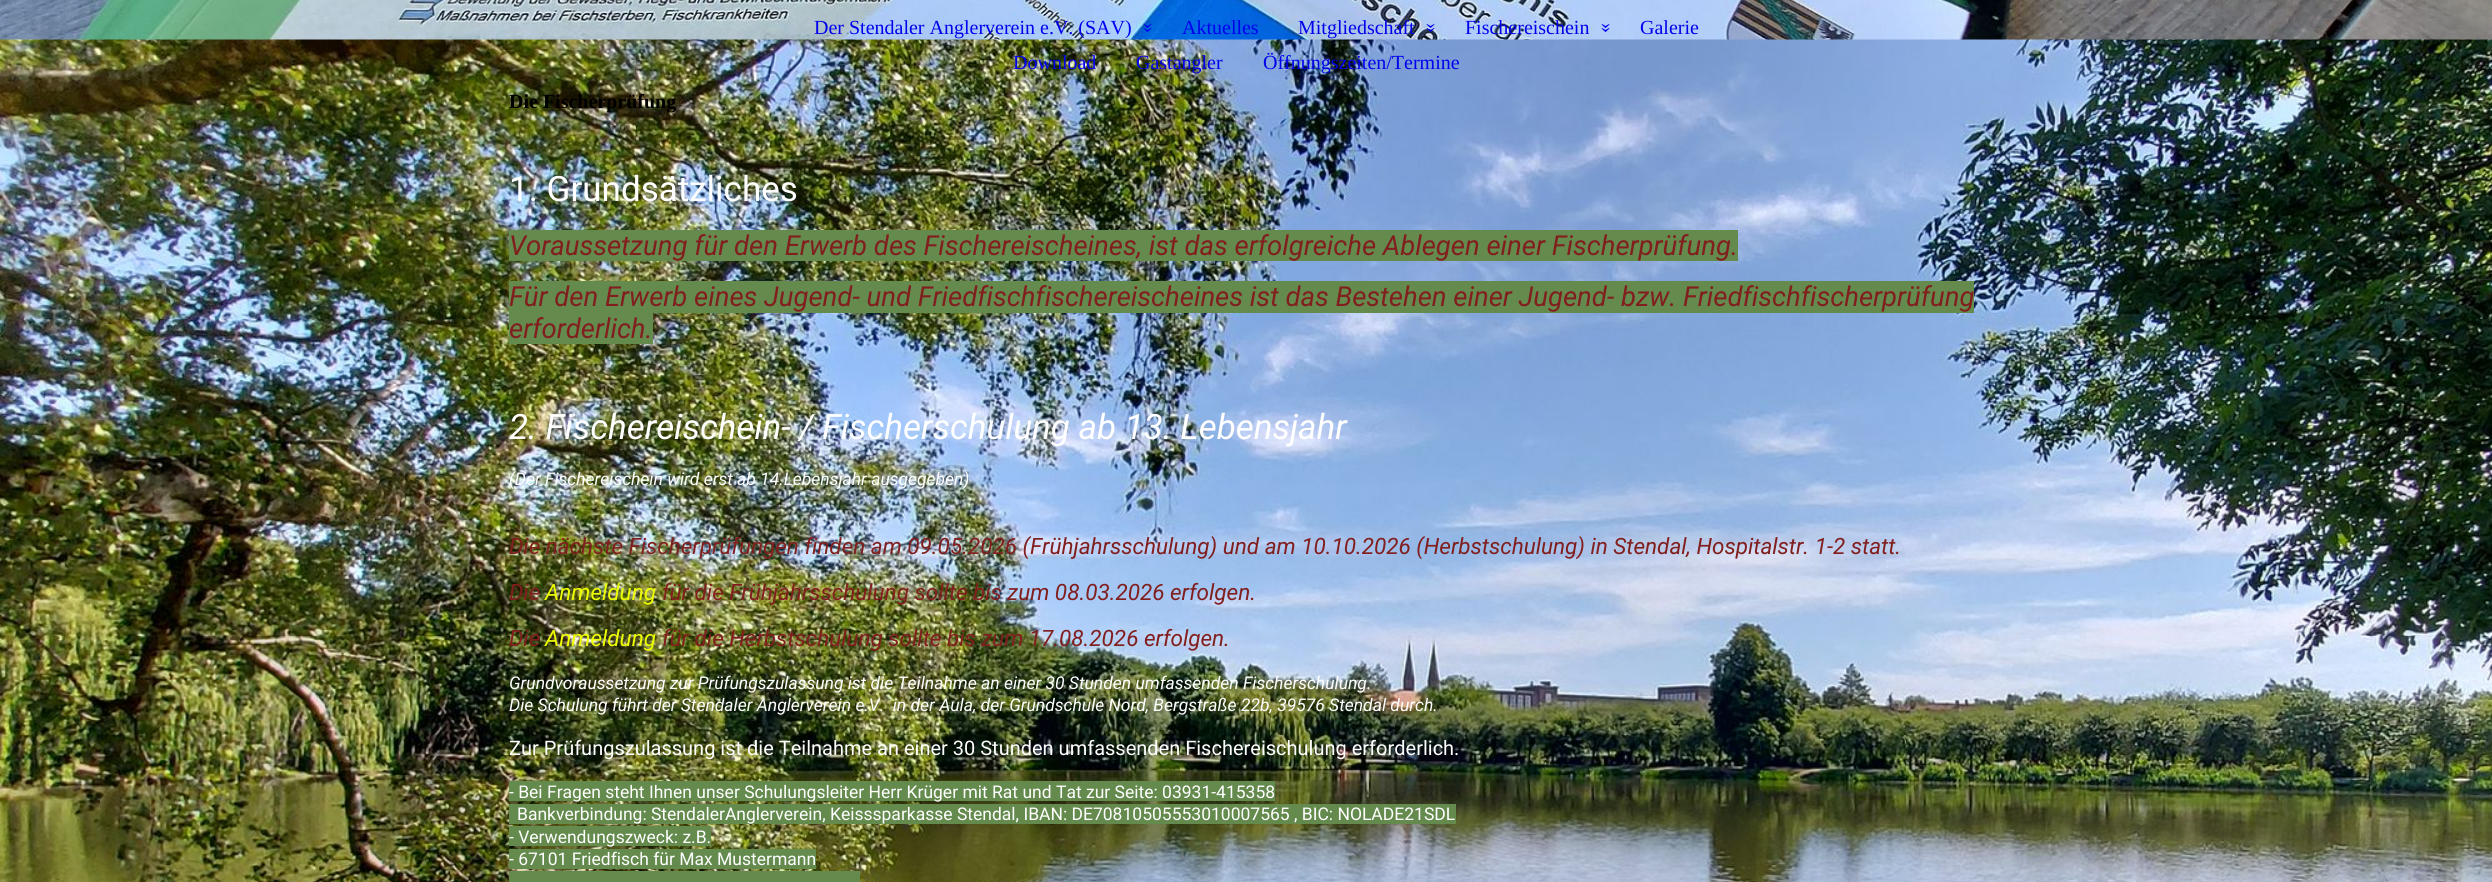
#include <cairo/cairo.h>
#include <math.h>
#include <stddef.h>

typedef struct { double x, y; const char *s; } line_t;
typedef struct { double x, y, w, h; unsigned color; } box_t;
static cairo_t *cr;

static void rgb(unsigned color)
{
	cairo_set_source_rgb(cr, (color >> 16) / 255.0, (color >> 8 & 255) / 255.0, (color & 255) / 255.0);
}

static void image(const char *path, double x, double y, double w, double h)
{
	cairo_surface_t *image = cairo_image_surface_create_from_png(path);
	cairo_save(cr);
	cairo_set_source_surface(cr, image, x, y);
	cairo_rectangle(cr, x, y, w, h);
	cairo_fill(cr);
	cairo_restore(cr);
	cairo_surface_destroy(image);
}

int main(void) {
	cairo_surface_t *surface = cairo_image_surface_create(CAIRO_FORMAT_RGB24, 2492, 882);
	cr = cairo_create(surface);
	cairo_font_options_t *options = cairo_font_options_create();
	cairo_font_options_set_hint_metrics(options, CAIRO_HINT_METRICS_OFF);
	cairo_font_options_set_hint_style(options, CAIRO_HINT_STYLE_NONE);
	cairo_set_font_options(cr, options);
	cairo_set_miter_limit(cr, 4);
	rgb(0xffffff);
	cairo_paint(cr);
	image("img/1.png", 0, 39, 2492, 843);
	image("img/2.png", 0, 0, 2492, 40);
	{
		static const box_t items[] = {
			{509, 230, 1229, 31, 0x648a4d},
			{509, 281, 1465, 32, 0x648a4d},
			{509, 313, 144, 31, 0x648a4d},
			{509, 781, 766, 20, 0x648a4d},
			{509, 804, 947, 20, 0x648a4d},
			{509, 826, 202, 20, 0x648a4d},
			{509, 849, 307, 20, 0x648a4d},
			{509, 871, 351, 11, 0x648a4d},
		};
		for (size_t i = 0; i < sizeof items / sizeof *items; i++) {
			rgb(items[i].color);
			cairo_rectangle(cr, items[i].x, items[i].y, items[i].w, items[i].h);
			cairo_fill(cr);
		}
	}
	cairo_select_font_face(cr, "Liberation Serif", CAIRO_FONT_SLANT_NORMAL, CAIRO_FONT_WEIGHT_NORMAL);
	cairo_set_font_size(cr, 20);
	rgb(0x0000ee);
	cairo_move_to(cr, 814, 34);
	cairo_show_text(cr, "Der Stendaler Anglerverein e.V. (SAV)");
	cairo_save(cr);
	cairo_translate(cr, 1143, 23);
	cairo_rotate(cr, 90 * M_PI / 180);
	cairo_move_to(cr, 0, 0);
	cairo_show_text(cr, "»");
	cairo_restore(cr);
	cairo_move_to(cr, 1182, 34);
	cairo_show_text(cr, "Aktuelles");
	cairo_move_to(cr, 1298, 34);
	cairo_show_text(cr, "Mitgliedschaft");
	cairo_save(cr);
	cairo_translate(cr, 1426, 23);
	cairo_rotate(cr, 90 * M_PI / 180);
	cairo_move_to(cr, 0, 0);
	cairo_show_text(cr, "»");
	cairo_restore(cr);
	cairo_move_to(cr, 1465, 34);
	cairo_show_text(cr, "Fischereischein");
	cairo_save(cr);
	cairo_translate(cr, 1601, 23);
	cairo_rotate(cr, 90 * M_PI / 180);
	cairo_move_to(cr, 0, 0);
	cairo_show_text(cr, "»");
	cairo_restore(cr);
	{
		static const line_t items[] = {
			{1640, 34, "Galerie"},
			{1013, 69, "Download"},
			{1136, 69, "Gastangler"},
			{1263, 69, "Öffnungszeiten/Termine"},
		};
		for (size_t i = 0; i < sizeof items / sizeof *items; i++) {
			cairo_move_to(cr, items[i].x, items[i].y);
			cairo_show_text(cr, items[i].s);
		}
	}
	cairo_select_font_face(cr, "Liberation Serif", CAIRO_FONT_SLANT_NORMAL, CAIRO_FONT_WEIGHT_BOLD);
	rgb(0x000000);
	cairo_move_to(cr, 509, 108);
	cairo_show_text(cr, "Die Fischerprüfung");
	cairo_select_font_face(cr, "Roboto", CAIRO_FONT_SLANT_NORMAL, CAIRO_FONT_WEIGHT_NORMAL);
	cairo_set_font_size(cr, 35);
	rgb(0xffffff);
	cairo_move_to(cr, 509, 201);
	cairo_show_text(cr, "1. Grundsätzliches");
	cairo_select_font_face(cr, "Roboto", CAIRO_FONT_SLANT_ITALIC, CAIRO_FONT_WEIGHT_NORMAL);
	cairo_set_font_size(cr, 27.5);
	rgb(0x811e1e);
	{
		static const line_t items[] = {
			{509, 255, "Voraussetzung für den Erwerb des Fischereischeines, ist das erfolgreiche Ablegen einer Fischerprüfung."},
			{509, 306, "Für den Erwerb eines Jugend- und Friedfischfischereischeines ist das Bestehen einer Jugend- bzw. Friedfischfischerprüfung"},
			{509, 338, "erforderlich."},
		};
		for (size_t i = 0; i < sizeof items / sizeof *items; i++) {
			cairo_move_to(cr, items[i].x, items[i].y);
			cairo_show_text(cr, items[i].s);
		}
	}
	cairo_set_font_size(cr, 35);
	rgb(0xffffff);
	cairo_move_to(cr, 509, 439);
	cairo_show_text(cr, "2. Fischereischein- / Fischerschulung ab 13. Lebensjahr");
	cairo_set_font_size(cr, 17.5);
	cairo_move_to(cr, 509, 485);
	cairo_show_text(cr, "(Der Fischereischein wird erst ab 14.Lebensjahr ausgegeben)");
	cairo_set_font_size(cr, 22.5);
	rgb(0x811e1e);
	cairo_move_to(cr, 509, 554);
	cairo_show_text(cr, "Die nächste Fischerprüfungen finden am 09.05.2026 (Frühjahrsschulung) und am 10.10.2026 (Herbstschulung) in Stendal, Hospitalstr. 1-2 statt.");
	cairo_move_to(cr, 509, 600);
	cairo_show_text(cr, "Die");
	rgb(0xeeff00);
	cairo_move_to(cr, 545, 600);
	cairo_show_text(cr, "Anmeldung");
	rgb(0x811e1e);
	cairo_move_to(cr, 662, 600);
	cairo_show_text(cr, "für die Frühjahrsschulung sollte bis zum 08.03.2026 erfolgen.");
	cairo_move_to(cr, 509, 646);
	cairo_show_text(cr, "Die");
	rgb(0xeeff00);
	cairo_move_to(cr, 545, 646);
	cairo_show_text(cr, "Anmeldung");
	rgb(0x811e1e);
	cairo_move_to(cr, 662, 646);
	cairo_show_text(cr, "für die Herbstschulung sollte bis zum 17.08.2026 erfolgen.");
	cairo_set_font_size(cr, 17.5);
	rgb(0xffffff);
	cairo_move_to(cr, 509, 689);
	cairo_show_text(cr, "Grundvoraussetzung zur Prüfungszulassung ist die Teilnahme an einer 30 Stunden umfassenden Fischerschulung.");
	cairo_move_to(cr, 509, 711);
	cairo_show_text(cr, "Die Schulung führt der Stendaler Anglerverein e.V.  in der Aula, der Grundschule Nord, Bergstraße 22b, 39576 Stendal durch.");
	cairo_select_font_face(cr, "Roboto", CAIRO_FONT_SLANT_NORMAL, CAIRO_FONT_WEIGHT_NORMAL);
	cairo_set_font_size(cr, 20);
	cairo_move_to(cr, 509, 755);
	cairo_show_text(cr, "Zur Prüfungszulassung ist die Teilnahme an einer 30 Stunden umfassenden Fischereischulung erforderlich.");
	cairo_set_font_size(cr, 17.5);
	{
		static const line_t items[] = {
			{509, 798, "- Bei Fragen steht Ihnen unser Schulungsleiter Herr Krüger mit Rat und Tat zur Seite: 03931-415358"},
			{517, 820, "Bankverbindung: StendalerAnglerverein, Keisssparkasse Stendal, IBAN: DE70810505553010007565 , BIC: NOLADE21SDL"},
			{509, 843, "- Verwendungszweck: z.B."},
			{509, 865, "- 67101 Friedfisch für Max Mustermann"},
		};
		for (size_t i = 0; i < sizeof items / sizeof *items; i++) {
			cairo_move_to(cr, items[i].x, items[i].y);
			cairo_show_text(cr, items[i].s);
		}
	}
	cairo_surface_write_to_png(surface, "page.png");
	cairo_font_options_destroy(options);
	cairo_destroy(cr);
	cairo_surface_destroy(surface);
	return 0;
}
